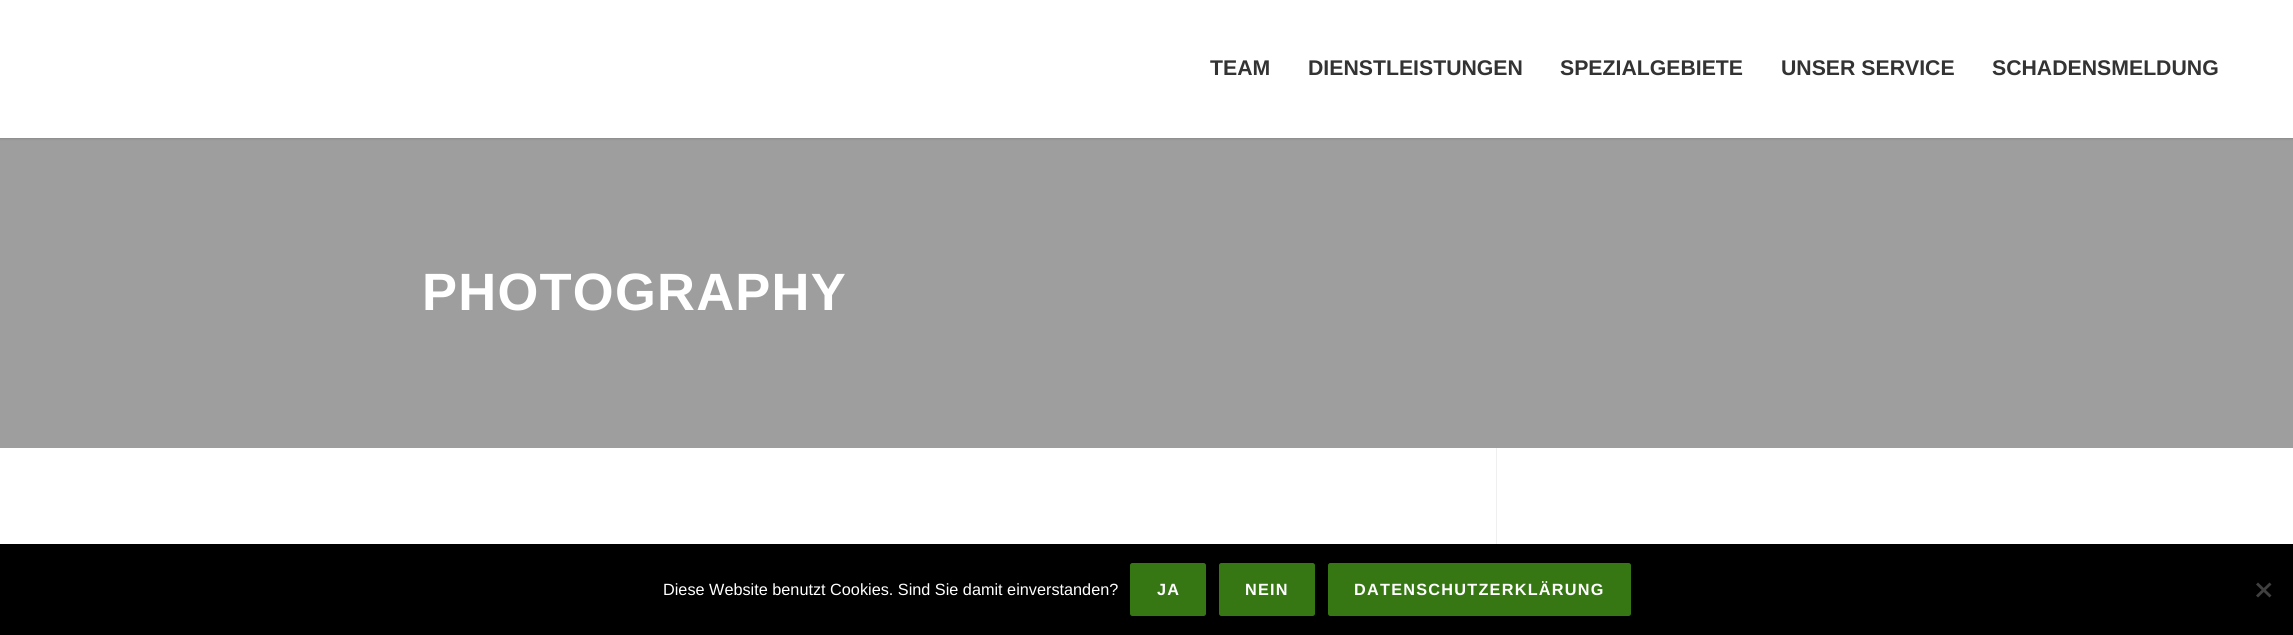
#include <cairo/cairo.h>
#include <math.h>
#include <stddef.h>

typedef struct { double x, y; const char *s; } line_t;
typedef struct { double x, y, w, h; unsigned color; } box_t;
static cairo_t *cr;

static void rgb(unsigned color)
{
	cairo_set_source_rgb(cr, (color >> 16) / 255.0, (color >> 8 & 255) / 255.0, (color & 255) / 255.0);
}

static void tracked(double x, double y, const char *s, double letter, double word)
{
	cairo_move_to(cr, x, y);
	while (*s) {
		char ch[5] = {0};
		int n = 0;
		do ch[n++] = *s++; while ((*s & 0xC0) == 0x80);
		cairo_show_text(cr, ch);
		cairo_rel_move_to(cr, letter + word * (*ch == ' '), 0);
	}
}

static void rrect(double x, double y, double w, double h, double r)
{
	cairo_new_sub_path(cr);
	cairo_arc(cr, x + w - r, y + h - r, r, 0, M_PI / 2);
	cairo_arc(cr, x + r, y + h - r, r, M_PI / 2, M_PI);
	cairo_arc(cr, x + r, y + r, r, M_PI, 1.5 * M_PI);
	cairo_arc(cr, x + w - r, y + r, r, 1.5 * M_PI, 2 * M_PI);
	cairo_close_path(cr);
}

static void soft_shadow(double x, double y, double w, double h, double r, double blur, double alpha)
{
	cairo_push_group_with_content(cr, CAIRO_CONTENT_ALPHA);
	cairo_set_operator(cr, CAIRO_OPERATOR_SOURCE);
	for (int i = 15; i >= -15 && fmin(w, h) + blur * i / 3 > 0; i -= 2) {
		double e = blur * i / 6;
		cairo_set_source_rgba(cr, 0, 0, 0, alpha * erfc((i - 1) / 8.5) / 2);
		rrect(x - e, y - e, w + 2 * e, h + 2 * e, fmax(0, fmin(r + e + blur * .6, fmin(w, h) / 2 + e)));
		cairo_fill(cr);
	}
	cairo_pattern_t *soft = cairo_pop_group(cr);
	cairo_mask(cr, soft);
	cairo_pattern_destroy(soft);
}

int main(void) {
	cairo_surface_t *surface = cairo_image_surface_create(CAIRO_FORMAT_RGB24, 2293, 635);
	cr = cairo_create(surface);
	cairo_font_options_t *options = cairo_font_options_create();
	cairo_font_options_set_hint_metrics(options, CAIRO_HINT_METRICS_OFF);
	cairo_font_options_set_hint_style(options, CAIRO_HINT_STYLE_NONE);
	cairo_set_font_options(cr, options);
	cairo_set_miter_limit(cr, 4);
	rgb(0xffffff);
	cairo_paint(cr);
	rgb(0x9e9e9e);
	cairo_rectangle(cr, 0, 138, 2293, 310);
	cairo_fill(cr);
	rgb(0x000000);
	soft_shadow(-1, -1, 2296, 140, 0, 1, 0.13);
	{
		static const box_t items[] = {
			{0, 0, 2293, 138, 0xffffff},
			{1496, 448, 1, 96, 0xefefef},
			{0, 544, 2293, 91, 0x000000},
		};
		for (size_t i = 0; i < sizeof items / sizeof *items; i++) {
			rgb(items[i].color);
			cairo_rectangle(cr, items[i].x, items[i].y, items[i].w, items[i].h);
			cairo_fill(cr);
		}
	}
	rgb(0x367714);
	rrect(1130.5, 563.5, 75, 52, 2);
	cairo_fill_preserve(cr);
	cairo_set_line_width(cr, 1);
	cairo_stroke(cr);
	rrect(1219.5, 563.5, 95, 52, 2);
	cairo_fill_preserve(cr);
	cairo_stroke(cr);
	rrect(1328.5, 563.5, 302, 52, 2);
	cairo_fill_preserve(cr);
	cairo_stroke(cr);
	rgb(0x404040);
	cairo_new_path(cr);
	cairo_move_to(cr, 2269.5, 582.5);
	cairo_line_to(cr, 2271.5, 584.5);
	cairo_line_to(cr, 2258, 597.5);
	cairo_line_to(cr, 2256, 595.5);
	cairo_close_path(cr);
	cairo_fill(cr);
	cairo_new_path(cr);
	cairo_move_to(cr, 2256, 584.5);
	cairo_line_to(cr, 2258, 582.5);
	cairo_line_to(cr, 2271.5, 595.5);
	cairo_line_to(cr, 2269.5, 597.5);
	cairo_close_path(cr);
	cairo_fill(cr);
	cairo_select_font_face(cr, "Liberation Sans", CAIRO_FONT_SLANT_NORMAL, CAIRO_FONT_WEIGHT_BOLD);
	cairo_set_font_size(cr, 21.25);
	rgb(0x333333);
	{
		static const line_t items[] = {
			{1210, 75, "TEAM"},
			{1308, 75, "DIENSTLEISTUNGEN"},
			{1560, 75, "SPEZIALGEBIETE"},
			{1781, 75, "UNSER SERVICE"},
			{1992, 75, "SCHADENSMELDUNG"},
		};
		for (size_t i = 0; i < sizeof items / sizeof *items; i++) {
			cairo_move_to(cr, items[i].x, items[i].y);
			cairo_show_text(cr, items[i].s);
		}
	}
	cairo_set_font_size(cr, 52.5);
	rgb(0xffffff);
	tracked(422, 310, "PHOTOGRAPHY", 1.25, 0);
	cairo_select_font_face(cr, "Liberation Sans", CAIRO_FONT_SLANT_NORMAL, CAIRO_FONT_WEIGHT_NORMAL);
	cairo_set_font_size(cr, 16.25);
	cairo_move_to(cr, 663, 595);
	cairo_show_text(cr, "Diese Website benutzt Cookies. Sind Sie damit einverstanden?");
	cairo_select_font_face(cr, "Liberation Sans", CAIRO_FONT_SLANT_NORMAL, CAIRO_FONT_WEIGHT_BOLD);
	{
		static const line_t items[] = {
			{1157, 595, "JA"},
			{1245, 595, "NEIN"},
			{1354, 595, "DATENSCHUTZERKLÄRUNG"},
		};
		for (size_t i = 0; i < sizeof items / sizeof *items; i++) {
			tracked(items[i].x, items[i].y, items[i].s, 1.25, 0);
		}
	}
	cairo_surface_write_to_png(surface, "page.png");
	cairo_font_options_destroy(options);
	cairo_destroy(cr);
	cairo_surface_destroy(surface);
	return 0;
}
